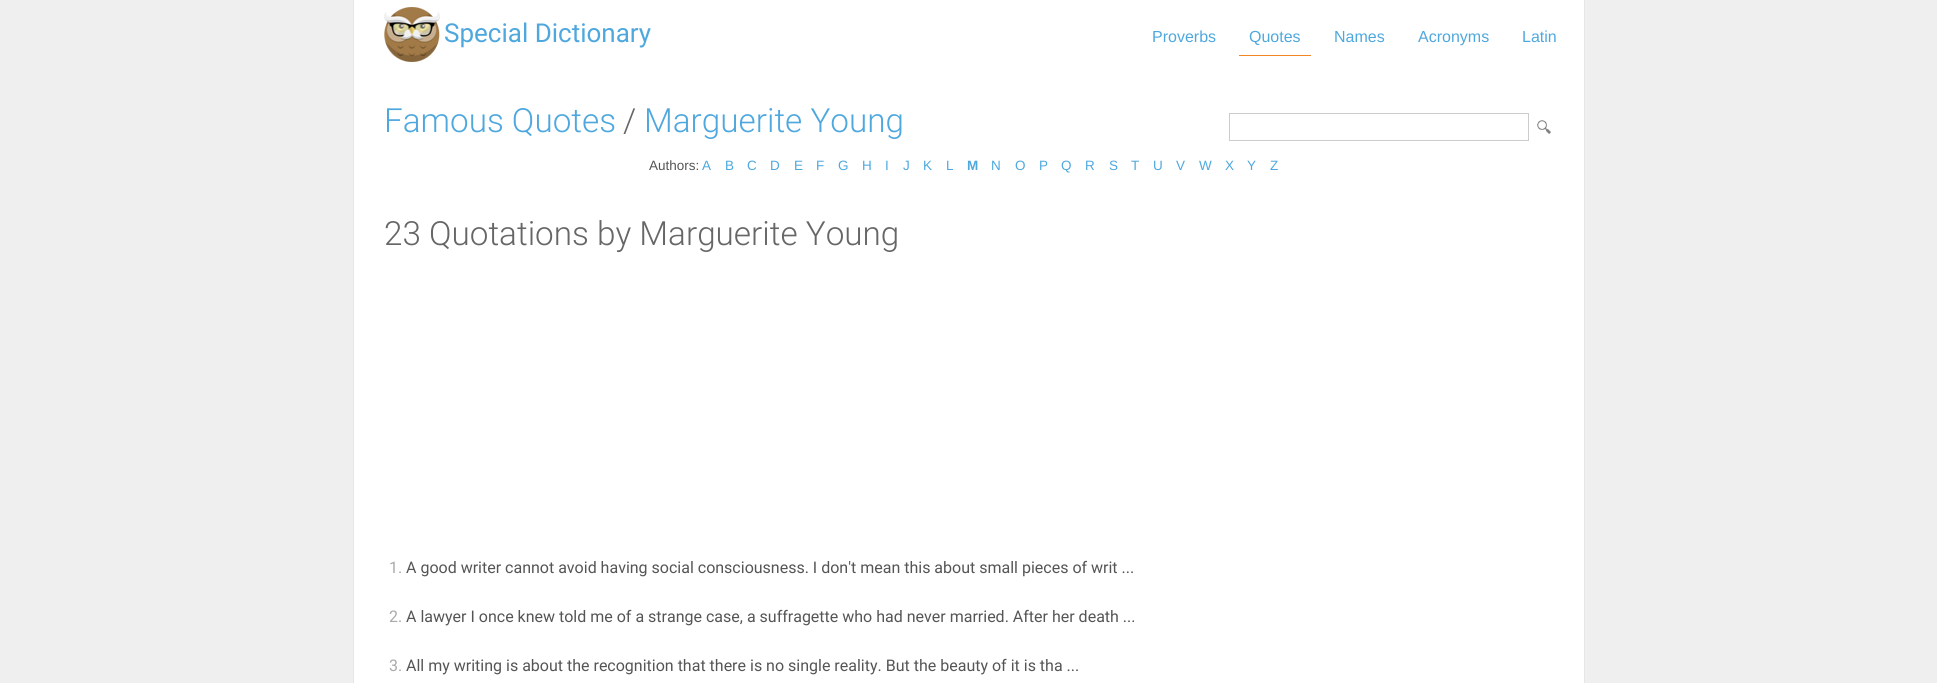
#include <cairo/cairo.h>
#include <math.h>
#include <stddef.h>

typedef struct { double x, y; const char *s; } line_t;
static cairo_t *cr;

static void rgb(unsigned color)
{
	cairo_set_source_rgb(cr, (color >> 16) / 255.0, (color >> 8 & 255) / 255.0, (color & 255) / 255.0);
}

static void rrect(double x, double y, double w, double h, double r)
{
	cairo_new_sub_path(cr);
	cairo_arc(cr, x + w - r, y + h - r, r, 0, M_PI / 2);
	cairo_arc(cr, x + r, y + h - r, r, M_PI / 2, M_PI);
	cairo_arc(cr, x + r, y + r, r, M_PI, 1.5 * M_PI);
	cairo_arc(cr, x + w - r, y + r, r, 1.5 * M_PI, 2 * M_PI);
	cairo_close_path(cr);
}

static void soft_shadow(double x, double y, double w, double h, double r, double blur, double alpha)
{
	cairo_push_group_with_content(cr, CAIRO_CONTENT_ALPHA);
	cairo_set_operator(cr, CAIRO_OPERATOR_SOURCE);
	for (int i = 15; i >= -15 && fmin(w, h) + blur * i / 3 > 0; i -= 2) {
		double e = blur * i / 6;
		cairo_set_source_rgba(cr, 0, 0, 0, alpha * erfc((i - 1) / 8.5) / 2);
		rrect(x - e, y - e, w + 2 * e, h + 2 * e, fmax(0, fmin(r + e + blur * .6, fmin(w, h) / 2 + e)));
		cairo_fill(cr);
	}
	cairo_pattern_t *soft = cairo_pop_group(cr);
	cairo_mask(cr, soft);
	cairo_pattern_destroy(soft);
}

static void image(const char *path, double x, double y, double w, double h)
{
	cairo_surface_t *image = cairo_image_surface_create_from_png(path);
	cairo_save(cr);
	cairo_set_source_surface(cr, image, x, y);
	cairo_rectangle(cr, x, y, w, h);
	cairo_fill(cr);
	cairo_restore(cr);
	cairo_surface_destroy(image);
}

int main(void) {
	cairo_surface_t *surface = cairo_image_surface_create(CAIRO_FORMAT_RGB24, 1937, 683);
	cr = cairo_create(surface);
	cairo_font_options_t *options = cairo_font_options_create();
	cairo_font_options_set_hint_metrics(options, CAIRO_HINT_METRICS_OFF);
	cairo_font_options_set_hint_style(options, CAIRO_HINT_STYLE_NONE);
	cairo_set_font_options(cr, options);
	cairo_set_miter_limit(cr, 4);
	rgb(0xefefef);
	cairo_paint(cr);
	rgb(0xcccccc);
	soft_shadow(354, 0, 1230, 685, 0, 0.5, 1);
	rgb(0xffffff);
	cairo_rectangle(cr, 354, 0, 1230, 683);
	cairo_fill(cr);
	image("img/1.png", 384, 7, 56, 55);
	rgb(0xf58723);
	cairo_rectangle(cr, 1239, 55, 72, 1);
	cairo_fill(cr);
	cairo_rectangle(cr, 1229.5, 113.5, 299, 27);
	rgb(0xcccccc);
	cairo_set_line_width(cr, 1);
	cairo_stroke(cr);
	image("img/2.png", 1537, 120, 14, 14);
	cairo_select_font_face(cr, "Roboto", CAIRO_FONT_SLANT_NORMAL, CAIRO_FONT_WEIGHT_NORMAL);
	cairo_set_font_size(cr, 26);
	rgb(0x4ea8de);
	cairo_move_to(cr, 444, 42);
	cairo_show_text(cr, "Special Dictionary");
	cairo_select_font_face(cr, "Liberation Sans", CAIRO_FONT_SLANT_NORMAL, CAIRO_FONT_WEIGHT_NORMAL);
	cairo_set_font_size(cr, 16);
	{
		static const line_t items[] = {
			{1152, 42, "Proverbs"},
			{1249, 42, "Quotes"},
			{1334, 42, "Names"},
			{1418, 42, "Acronyms"},
			{1522, 42, "Latin"},
		};
		for (size_t i = 0; i < sizeof items / sizeof *items; i++) {
			cairo_move_to(cr, items[i].x, items[i].y);
			cairo_show_text(cr, items[i].s);
		}
	}
	cairo_select_font_face(cr, "Roboto Light", CAIRO_FONT_SLANT_NORMAL, CAIRO_FONT_WEIGHT_NORMAL);
	cairo_set_font_size(cr, 33.25);
	cairo_move_to(cr, 384, 132);
	cairo_show_text(cr, "Famous Quotes");
	rgb(0x666666);
	cairo_move_to(cr, 623, 132);
	cairo_show_text(cr, "/");
	rgb(0x4ea8de);
	cairo_move_to(cr, 644, 132);
	cairo_show_text(cr, "Marguerite Young");
	cairo_select_font_face(cr, "Liberation Sans", CAIRO_FONT_SLANT_NORMAL, CAIRO_FONT_WEIGHT_NORMAL);
	cairo_set_font_size(cr, 13.5);
	rgb(0x555555);
	cairo_move_to(cr, 649, 170);
	cairo_show_text(cr, "Authors:");
	rgb(0x4ea8de);
	{
		static const line_t items[] = {
			{702, 170, "A"},
			{725, 170, "B"},
			{747, 170, "C"},
			{770, 170, "D"},
			{794, 170, "E"},
			{816, 170, "F"},
			{838, 170, "G"},
			{862, 170, "H"},
			{885, 170, "I"},
			{903, 170, "J"},
			{923, 170, "K"},
			{946, 170, "L"},
		};
		for (size_t i = 0; i < sizeof items / sizeof *items; i++) {
			cairo_move_to(cr, items[i].x, items[i].y);
			cairo_show_text(cr, items[i].s);
		}
	}
	cairo_select_font_face(cr, "Liberation Sans", CAIRO_FONT_SLANT_NORMAL, CAIRO_FONT_WEIGHT_BOLD);
	cairo_move_to(cr, 967, 170);
	cairo_show_text(cr, "M");
	cairo_select_font_face(cr, "Liberation Sans", CAIRO_FONT_SLANT_NORMAL, CAIRO_FONT_WEIGHT_NORMAL);
	{
		static const line_t items[] = {
			{991, 170, "N"},
			{1015, 170, "O"},
			{1039, 170, "P"},
			{1061, 170, "Q"},
			{1085, 170, "R"},
			{1109, 170, "S"},
			{1131, 170, "T"},
			{1153, 170, "U"},
			{1176, 170, "V"},
			{1199, 170, "W"},
			{1225, 170, "X"},
			{1247, 170, "Y"},
			{1270, 170, "Z"},
		};
		for (size_t i = 0; i < sizeof items / sizeof *items; i++) {
			cairo_move_to(cr, items[i].x, items[i].y);
			cairo_show_text(cr, items[i].s);
		}
	}
	cairo_select_font_face(cr, "Roboto Light", CAIRO_FONT_SLANT_NORMAL, CAIRO_FONT_WEIGHT_NORMAL);
	cairo_set_font_size(cr, 33.25);
	rgb(0x666666);
	cairo_move_to(cr, 384, 245);
	cairo_show_text(cr, "23 Quotations by Marguerite Young");
	cairo_select_font_face(cr, "Roboto", CAIRO_FONT_SLANT_NORMAL, CAIRO_FONT_WEIGHT_NORMAL);
	cairo_set_font_size(cr, 16);
	rgb(0xaaaaaa);
	cairo_move_to(cr, 389, 573);
	cairo_show_text(cr, "1.");
	rgb(0x555555);
	cairo_move_to(cr, 406, 573);
	cairo_show_text(cr, "A good writer cannot avoid having social consciousness. I don't mean this about small pieces of writ ...");
	rgb(0xaaaaaa);
	cairo_move_to(cr, 389, 622);
	cairo_show_text(cr, "2.");
	rgb(0x555555);
	cairo_move_to(cr, 406, 622);
	cairo_show_text(cr, "A lawyer I once knew told me of a strange case, a suffragette who had never married. After her death ...");
	rgb(0xaaaaaa);
	cairo_move_to(cr, 389, 671);
	cairo_show_text(cr, "3.");
	rgb(0x555555);
	cairo_move_to(cr, 406, 671);
	cairo_show_text(cr, "All my writing is about the recognition that there is no single reality. But the beauty of it is tha ...");
	cairo_surface_write_to_png(surface, "page.png");
	cairo_font_options_destroy(options);
	cairo_destroy(cr);
	cairo_surface_destroy(surface);
	return 0;
}
